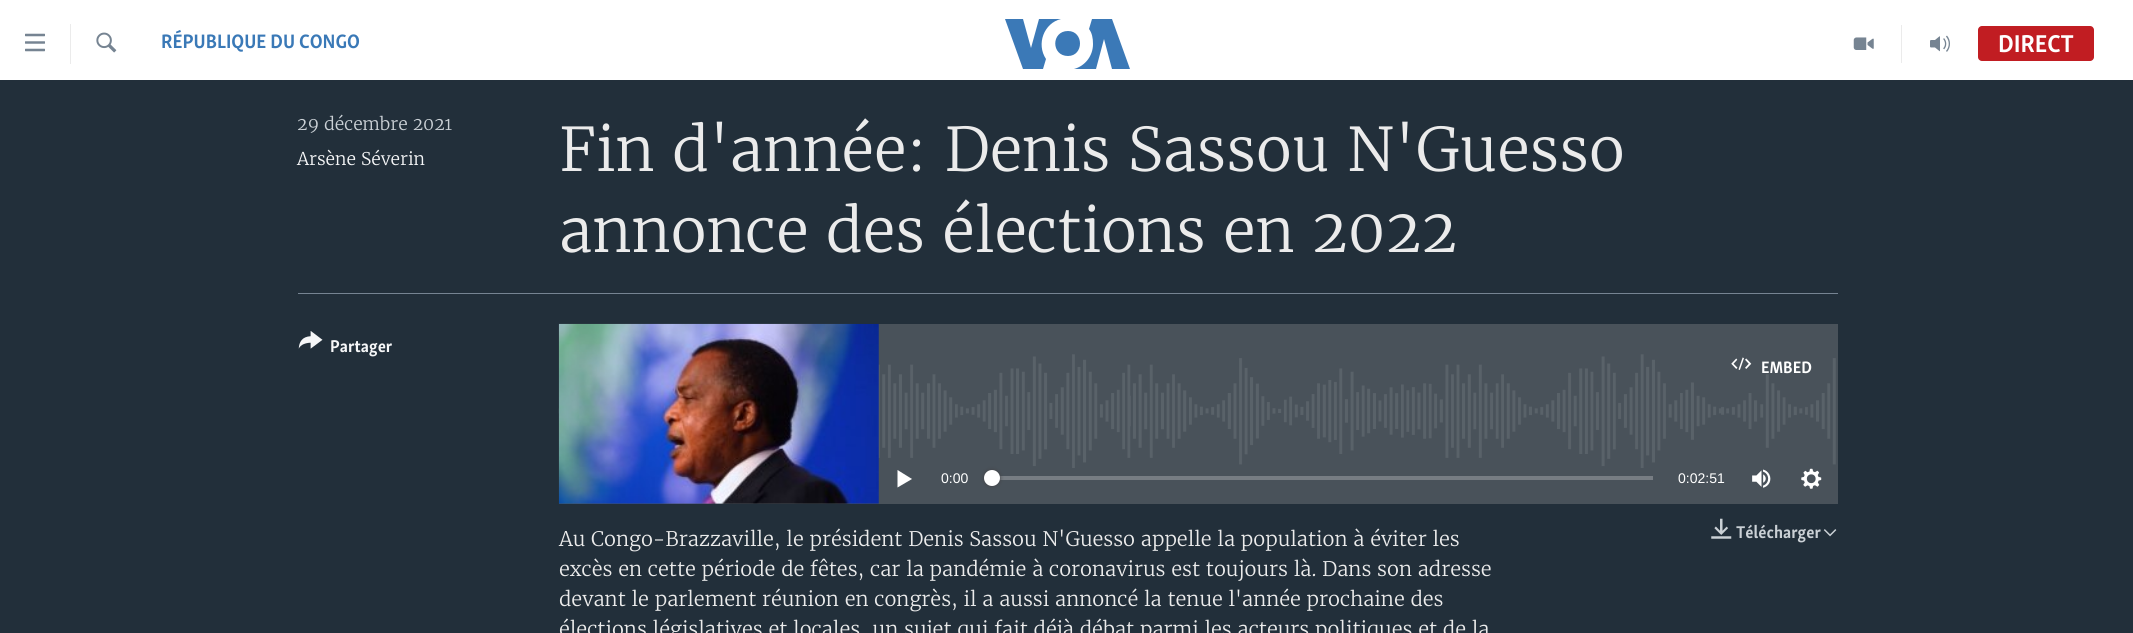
#include <cairo/cairo.h>
#include <math.h>
#include <stddef.h>

typedef struct { double x, y; const char *s; } line_t;
static cairo_t *cr;

static void rgb(unsigned color)
{
	cairo_set_source_rgb(cr, (color >> 16) / 255.0, (color >> 8 & 255) / 255.0, (color & 255) / 255.0);
}

static void rrect(double x, double y, double w, double h, double r)
{
	cairo_new_sub_path(cr);
	cairo_arc(cr, x + w - r, y + h - r, r, 0, M_PI / 2);
	cairo_arc(cr, x + r, y + h - r, r, M_PI / 2, M_PI);
	cairo_arc(cr, x + r, y + r, r, M_PI, 1.5 * M_PI);
	cairo_arc(cr, x + w - r, y + r, r, 1.5 * M_PI, 2 * M_PI);
	cairo_close_path(cr);
}

static void soft_shadow(double x, double y, double w, double h, double r, double blur, double alpha)
{
	cairo_push_group_with_content(cr, CAIRO_CONTENT_ALPHA);
	cairo_set_operator(cr, CAIRO_OPERATOR_SOURCE);
	for (int i = 15; i >= -15 && fmin(w, h) + blur * i / 3 > 0; i -= 2) {
		double e = blur * i / 6;
		cairo_set_source_rgba(cr, 0, 0, 0, alpha * erfc((i - 1) / 8.5) / 2);
		rrect(x - e, y - e, w + 2 * e, h + 2 * e, fmax(0, fmin(r + e + blur * .6, fmin(w, h) / 2 + e)));
		cairo_fill(cr);
	}
	cairo_pattern_t *soft = cairo_pop_group(cr);
	cairo_mask(cr, soft);
	cairo_pattern_destroy(soft);
}

static void image(const char *path, double x, double y, double w, double h)
{
	cairo_surface_t *image = cairo_image_surface_create_from_png(path);
	cairo_save(cr);
	cairo_set_source_surface(cr, image, x, y);
	cairo_rectangle(cr, x, y, w, h);
	cairo_fill(cr);
	cairo_restore(cr);
	cairo_surface_destroy(image);
}

int main(void) {
	cairo_surface_t *surface = cairo_image_surface_create(CAIRO_FORMAT_RGB24, 2133, 633);
	cr = cairo_create(surface);
	cairo_font_options_t *options = cairo_font_options_create();
	cairo_font_options_set_hint_metrics(options, CAIRO_HINT_METRICS_OFF);
	cairo_font_options_set_hint_style(options, CAIRO_HINT_STYLE_NONE);
	cairo_set_font_options(cr, options);
	cairo_set_miter_limit(cr, 4);
	rgb(0xffffff);
	cairo_paint(cr);
	image("img/1.png", 25, 33, 20, 19);
	rgb(0xebebeb);
	cairo_rectangle(cr, 70, 24, 1, 40);
	cairo_fill(cr);
	image("img/2.png", 96, 32, 21, 21);
	rgb(0x3b79b7);
	cairo_new_path(cr);
	cairo_move_to(cr, 1046, 59);
	cairo_line_to(cr, 1043, 69);
	cairo_line_to(cr, 1023, 69);
	cairo_line_to(cr, 1005, 19);
	cairo_line_to(cr, 1023, 19);
	cairo_line_to(cr, 1031, 48);
	cairo_line_to(cr, 1039, 19);
	cairo_line_to(cr, 1061, 19);
	cairo_curve_to(cr, 1044, 23, 1036, 44, 1046, 59);
	cairo_close_path(cr);
	cairo_move_to(cr, 1068, 31);
	cairo_curve_to(cr, 1051, 31, 1051, 56, 1068, 56);
	cairo_curve_to(cr, 1084, 56, 1084, 31, 1068, 31);
	cairo_close_path(cr);
	cairo_move_to(cr, 1093, 44);
	cairo_curve_to(cr, 1093, 56, 1085, 66, 1074, 69);
	cairo_line_to(cr, 1096, 69);
	cairo_line_to(cr, 1104, 39);
	cairo_line_to(cr, 1112, 69);
	cairo_line_to(cr, 1130, 69);
	cairo_line_to(cr, 1112, 19);
	cairo_line_to(cr, 1092, 19);
	cairo_line_to(cr, 1089, 29);
	cairo_curve_to(cr, 1092, 33, 1093, 38, 1093, 44);
	cairo_close_path(cr);
	cairo_fill(cr);
	rgb(0xebebeb);
	cairo_rectangle(cr, 1901, 25, 1, 38);
	cairo_fill(cr);
	image("img/3.png", 1853, 37, 21, 13);
	image("img/4.png", 1930, 35, 20, 17);
	rgb(0xc11d22);
	rrect(1978, 26, 116, 35, 4);
	cairo_fill(cr);
	rgb(0x222f3a);
	cairo_rectangle(cr, 0, 80, 2133, 553);
	cairo_fill(cr);
	rgb(0x768492);
	cairo_rectangle(cr, 298, 293, 1540, 1);
	cairo_fill(cr);
	image("img/5.png", 298, 331, 25, 18);
	rgb(0x49525a);
	cairo_rectangle(cr, 559, 324, 1279, 180);
	cairo_fill(cr);
	image("img/6.png", 558, 354, 1278, 114);
	image("img/7.png", 558, 323, 321, 181);
	image("img/8.png", 1731, 357, 21, 13);
	rgb(0xffffff);
	cairo_new_path(cr);
	cairo_move_to(cr, 897.5, 487.5);
	cairo_line_to(cr, 912, 479);
	cairo_line_to(cr, 897.5, 470);
	cairo_close_path(cr);
	cairo_fill(cr);
	rgb(0x777d83);
	cairo_rectangle(cr, 993, 476, 660, 4);
	cairo_fill(cr);
	rgb(0x414144);
	soft_shadow(984, 470, 16, 16, 8, 2, 1);
	rgb(0xffffff);
	cairo_arc(cr, 992, 478, 8, 0, 2 * M_PI);
	cairo_fill(cr);
	image("img/9.png", 1752, 469, 19, 19);
	image("img/10.png", 1801, 468, 21, 21);
	image("img/11.png", 1711, 518, 21, 21);
	image("img/12.png", 1823, 529, 14, 8);
	cairo_select_font_face(cr, "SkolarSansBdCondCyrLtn", CAIRO_FONT_SLANT_NORMAL, CAIRO_FONT_WEIGHT_BOLD);
	cairo_set_font_size(cr, 20);
	rgb(0x3a79b7);
	cairo_move_to(cr, 161, 48);
	cairo_show_text(cr, "RÉPUBLIQUE DU CONGO");
	cairo_set_font_size(cr, 25);
	rgb(0xffffff);
	cairo_move_to(cr, 1998, 52);
	cairo_show_text(cr, "DIRECT");
	cairo_select_font_face(cr, "Merriweather Light", CAIRO_FONT_SLANT_NORMAL, CAIRO_FONT_WEIGHT_NORMAL);
	cairo_set_font_size(cr, 17.5);
	rgb(0xcbd1d6);
	cairo_move_to(cr, 297, 130);
	cairo_show_text(cr, "29 décembre 2021");
	rgb(0xf6f7f8);
	cairo_move_to(cr, 297, 165);
	cairo_show_text(cr, "Arsène Séverin");
	cairo_set_font_size(cr, 60);
	rgb(0xebebeb);
	cairo_move_to(cr, 559, 171);
	cairo_show_text(cr, "Fin d'année: Denis Sassou N'Guesso");
	cairo_move_to(cr, 559, 252);
	cairo_show_text(cr, "annonce des élections en 2022");
	cairo_select_font_face(cr, "SkolarSansBdCondCyrLtn", CAIRO_FONT_SLANT_NORMAL, CAIRO_FONT_WEIGHT_BOLD);
	cairo_set_font_size(cr, 17.5);
	rgb(0xf6f7f8);
	cairo_move_to(cr, 330, 352);
	cairo_show_text(cr, "Partager");
	cairo_set_font_size(cr, 17);
	rgb(0xffffff);
	cairo_move_to(cr, 1761, 373);
	cairo_show_text(cr, "EMBED");
	cairo_select_font_face(cr, "Liberation Sans", CAIRO_FONT_SLANT_NORMAL, CAIRO_FONT_WEIGHT_NORMAL);
	cairo_set_font_size(cr, 14);
	cairo_move_to(cr, 941, 483);
	cairo_show_text(cr, "0:00");
	cairo_move_to(cr, 1678, 483);
	cairo_show_text(cr, "0:02:51");
	cairo_select_font_face(cr, "Merriweather Light", CAIRO_FONT_SLANT_NORMAL, CAIRO_FONT_WEIGHT_NORMAL);
	cairo_set_font_size(cr, 20);
	rgb(0xebebeb);
	{
		static const line_t items[] = {
			{559, 546, "Au Congo-Brazzaville, le président Denis Sassou N'Guesso appelle la population à éviter les"},
			{559, 576, "excès en cette période de fêtes, car la pandémie à coronavirus est toujours là. Dans son adresse"},
			{559, 606, "devant le parlement réunion en congrès, il a aussi annoncé la tenue l'année prochaine des"},
			{559, 636, "élections législatives et locales, un sujet qui fait déjà débat parmi les acteurs politiques et de la"},
		};
		for (size_t i = 0; i < sizeof items / sizeof *items; i++) {
			cairo_move_to(cr, items[i].x, items[i].y);
			cairo_show_text(cr, items[i].s);
		}
	}
	cairo_select_font_face(cr, "SkolarSansBdCondCyrLtn", CAIRO_FONT_SLANT_NORMAL, CAIRO_FONT_WEIGHT_BOLD);
	cairo_set_font_size(cr, 17.5);
	rgb(0xcbd1d6);
	cairo_move_to(cr, 1736, 538);
	cairo_show_text(cr, "Télécharger");
	cairo_surface_write_to_png(surface, "page.png");
	cairo_font_options_destroy(options);
	cairo_destroy(cr);
	cairo_surface_destroy(surface);
	return 0;
}
